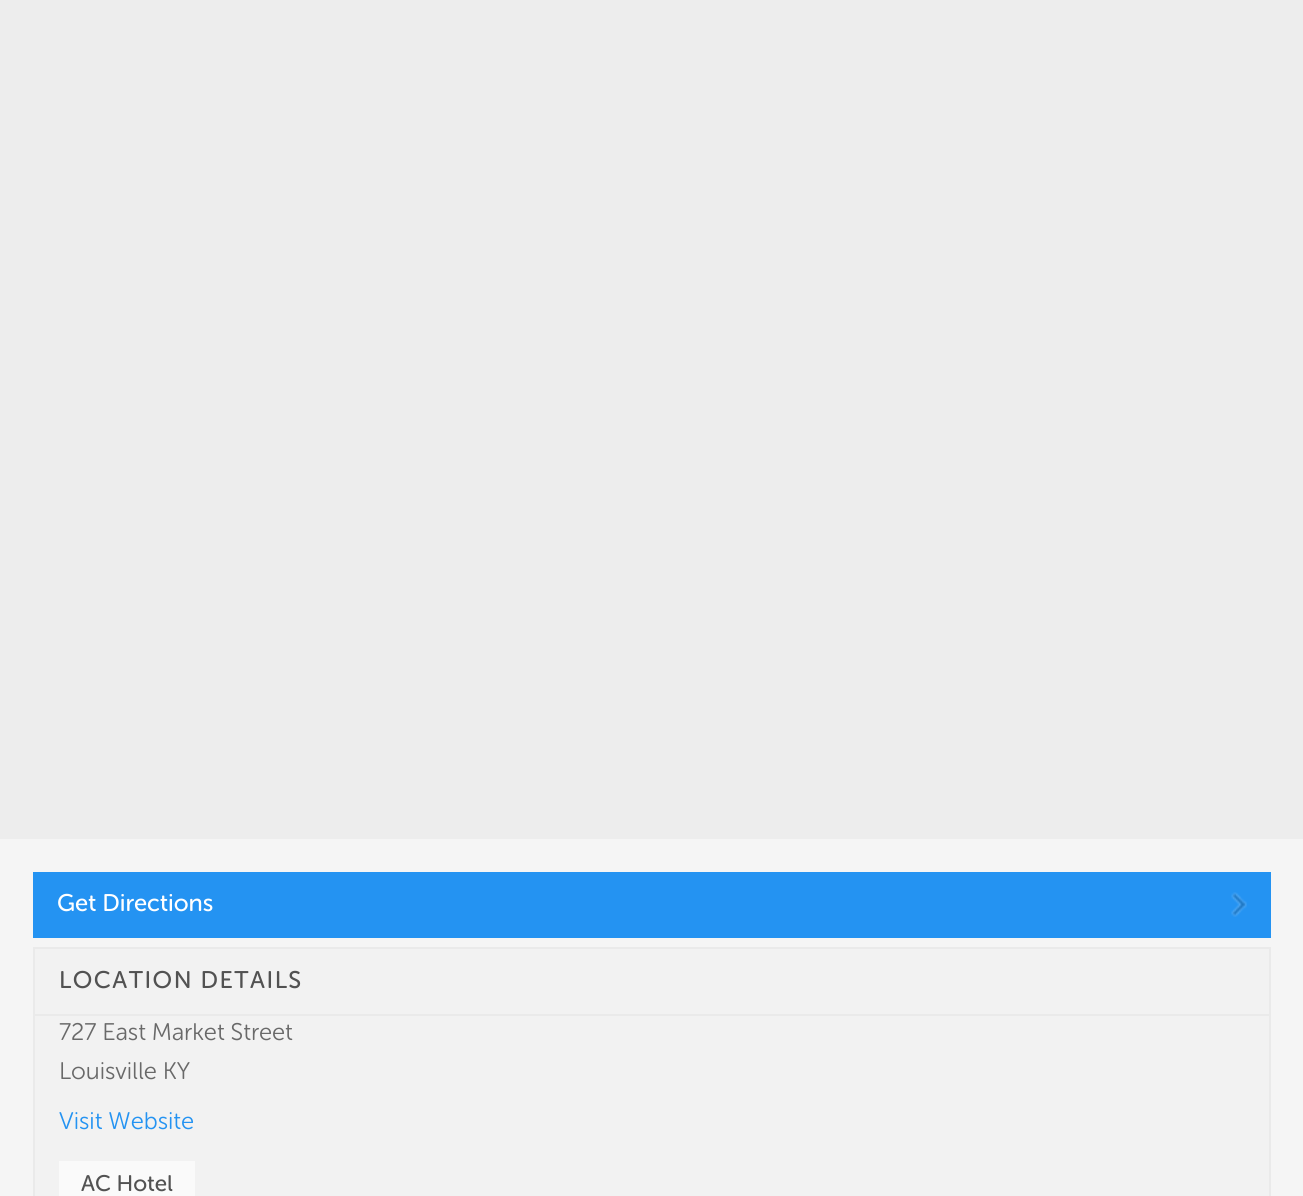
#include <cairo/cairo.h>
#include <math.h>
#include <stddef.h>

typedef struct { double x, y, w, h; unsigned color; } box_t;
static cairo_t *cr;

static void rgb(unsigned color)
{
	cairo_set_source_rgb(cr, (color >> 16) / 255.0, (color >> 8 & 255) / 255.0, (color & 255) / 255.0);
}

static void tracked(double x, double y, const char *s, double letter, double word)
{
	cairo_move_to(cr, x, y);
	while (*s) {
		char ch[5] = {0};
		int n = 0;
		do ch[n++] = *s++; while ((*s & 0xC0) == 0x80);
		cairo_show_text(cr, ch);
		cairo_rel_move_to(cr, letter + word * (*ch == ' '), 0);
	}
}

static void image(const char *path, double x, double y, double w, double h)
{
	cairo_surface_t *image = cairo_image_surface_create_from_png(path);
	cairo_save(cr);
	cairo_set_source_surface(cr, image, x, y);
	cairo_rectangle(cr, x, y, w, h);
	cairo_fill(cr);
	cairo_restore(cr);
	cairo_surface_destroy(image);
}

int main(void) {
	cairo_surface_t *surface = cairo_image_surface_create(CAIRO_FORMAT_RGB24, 1303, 1196);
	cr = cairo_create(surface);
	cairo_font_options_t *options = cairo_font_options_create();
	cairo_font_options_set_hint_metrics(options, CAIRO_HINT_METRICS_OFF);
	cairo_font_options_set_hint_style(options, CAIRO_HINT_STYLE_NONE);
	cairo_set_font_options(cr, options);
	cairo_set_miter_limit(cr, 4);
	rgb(0xf5f5f5);
	cairo_paint(cr);
	rgb(0xededed);
	cairo_rectangle(cr, 0, 0, 1303, 839);
	cairo_fill(cr);
	rgb(0x2493f2);
	cairo_rectangle(cr, 33, 872, 1238, 66);
	cairo_fill(cr);
	image("img/1.png", 1231, 892, 16, 25);
	rgb(0xf2f2f2);
	cairo_rectangle(cr, 34, 948, 1236, 67);
	cairo_fill_preserve(cr);
	rgb(0xeaeaea);
	cairo_stroke(cr);
	{
		static const box_t items[] = {
			{35, 1016, 1234, 180, 0xf2f2f2},
			{1269, 1016, 2, 180, 0xeaeaea},
			{33, 1016, 2, 180, 0xeaeaea},
			{59, 1161, 136, 35, 0xfafafa},
		};
		for (size_t i = 0; i < sizeof items / sizeof *items; i++) {
			rgb(items[i].color);
			cairo_rectangle(cr, items[i].x, items[i].y, items[i].w, items[i].h);
			cairo_fill(cr);
		}
	}
	cairo_select_font_face(cr, "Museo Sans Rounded", CAIRO_FONT_SLANT_NORMAL, CAIRO_FONT_WEIGHT_NORMAL);
	cairo_set_font_size(cr, 24);
	rgb(0xffffff);
	cairo_move_to(cr, 57, 911);
	cairo_show_text(cr, "Get Directions");
	rgb(0x525252);
	tracked(59, 988, "LOCATION DETAILS", 1.5, 0);
	cairo_select_font_face(cr, "Museo Sans Rounded Light", CAIRO_FONT_SLANT_NORMAL, CAIRO_FONT_WEIGHT_NORMAL);
	rgb(0x696969);
	cairo_move_to(cr, 59, 1040);
	cairo_show_text(cr, "727 East Market Street");
	cairo_move_to(cr, 59, 1079);
	cairo_show_text(cr, "Louisville KY");
	rgb(0x2493f2);
	cairo_move_to(cr, 59, 1129);
	cairo_show_text(cr, "Visit Website");
	cairo_select_font_face(cr, "Museo Sans Rounded", CAIRO_FONT_SLANT_NORMAL, CAIRO_FONT_WEIGHT_NORMAL);
	cairo_set_font_size(cr, 22.5);
	rgb(0x525252);
	cairo_move_to(cr, 81, 1191);
	cairo_show_text(cr, "AC Hotel");
	cairo_surface_write_to_png(surface, "page.png");
	cairo_font_options_destroy(options);
	cairo_destroy(cr);
	cairo_surface_destroy(surface);
	return 0;
}
